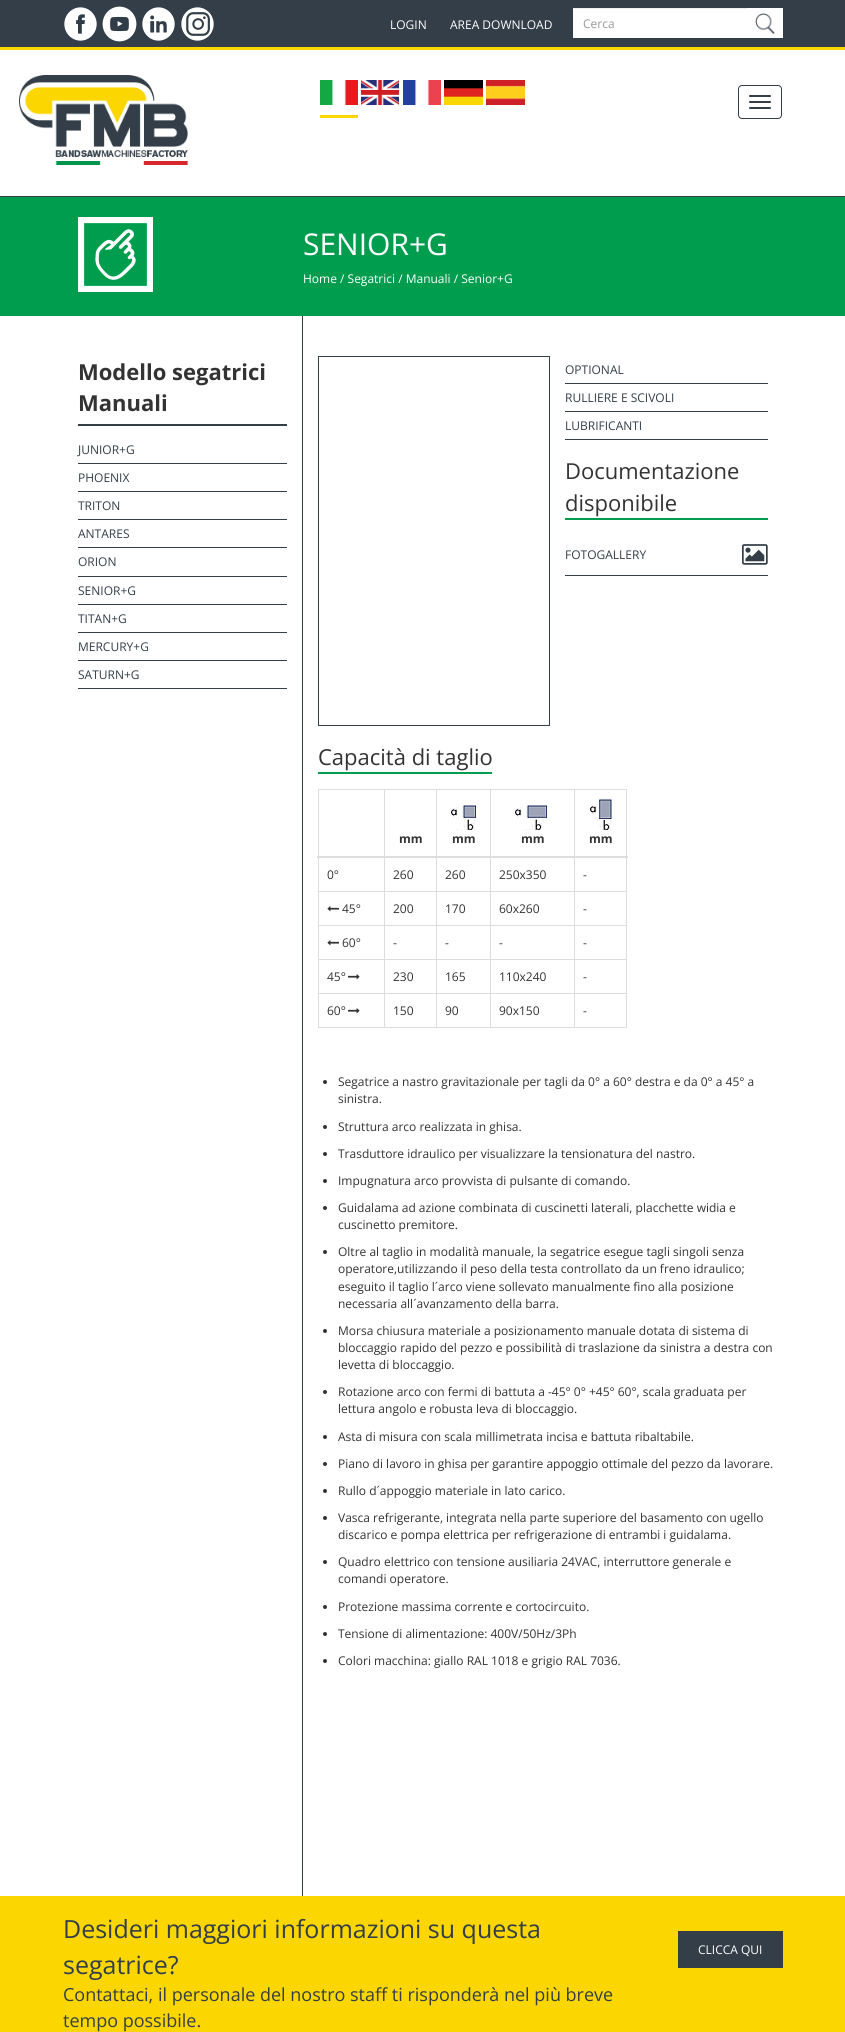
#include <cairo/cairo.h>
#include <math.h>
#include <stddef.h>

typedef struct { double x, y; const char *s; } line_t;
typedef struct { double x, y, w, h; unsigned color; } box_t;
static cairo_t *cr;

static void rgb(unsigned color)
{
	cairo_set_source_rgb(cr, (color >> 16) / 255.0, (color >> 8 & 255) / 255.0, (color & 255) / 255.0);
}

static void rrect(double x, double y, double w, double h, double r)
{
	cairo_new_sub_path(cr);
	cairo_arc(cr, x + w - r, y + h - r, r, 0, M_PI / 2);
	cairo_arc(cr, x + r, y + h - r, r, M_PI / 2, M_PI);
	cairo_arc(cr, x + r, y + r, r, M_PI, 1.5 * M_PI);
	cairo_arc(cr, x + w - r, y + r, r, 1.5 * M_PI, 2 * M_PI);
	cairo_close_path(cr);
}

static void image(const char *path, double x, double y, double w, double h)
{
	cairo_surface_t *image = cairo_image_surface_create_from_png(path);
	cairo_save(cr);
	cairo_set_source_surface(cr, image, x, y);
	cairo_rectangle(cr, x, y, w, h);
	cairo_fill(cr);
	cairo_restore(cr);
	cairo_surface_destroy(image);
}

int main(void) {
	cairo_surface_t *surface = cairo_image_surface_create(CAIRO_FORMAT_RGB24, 845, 2032);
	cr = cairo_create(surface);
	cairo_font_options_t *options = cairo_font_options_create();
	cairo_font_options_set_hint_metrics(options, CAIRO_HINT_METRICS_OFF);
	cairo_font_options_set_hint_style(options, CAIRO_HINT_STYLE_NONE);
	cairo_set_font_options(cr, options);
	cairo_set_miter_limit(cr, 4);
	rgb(0xffffff);
	cairo_paint(cr);
	rgb(0x333e48);
	cairo_rectangle(cr, 0, 0, 845, 47);
	cairo_fill(cr);
	rgb(0xfcd600);
	cairo_rectangle(cr, 0, 47, 845, 3);
	cairo_fill(cr);
	image("img/1.png", 63, 7, 35, 34);
	image("img/2.png", 102, 6, 35, 36);
	image("img/3.png", 141, 7, 35, 34);
	image("img/4.png", 180, 7, 35, 34);
	{
		static const box_t items[] = {
			{573, 9, 174, 29, 0xffffff},
			{573, 8, 174, 1, 0xececec},
			{747, 8, 36, 30, 0xffffff},
		};
		for (size_t i = 0; i < sizeof items / sizeof *items; i++) {
			rgb(items[i].color);
			cairo_rectangle(cr, items[i].x, items[i].y, items[i].w, items[i].h);
			cairo_fill(cr);
		}
	}
	image("img/5.png", 755, 13, 20, 21);
	image("img/6.png", 19, 75, 169, 90);
	rrect(738.5, 85.5, 43, 33, 3.5);
	rgb(0x333e48);
	cairo_set_line_width(cr, 1);
	cairo_stroke(cr);
	rrect(749, 95, 22, 2, 1);
	cairo_fill(cr);
	rrect(749, 101, 22, 2, 1);
	cairo_fill(cr);
	rrect(749, 107, 22, 2, 1);
	cairo_fill(cr);
	image("img/7.png", 320, 80, 38, 25);
	image("img/8.png", 361, 80, 38, 25);
	image("img/9.png", 403, 80, 38, 25);
	image("img/10.png", 444, 80, 39, 25);
	image("img/11.png", 486, 80, 39, 25);
	{
		static const box_t items[] = {
			{320, 115, 38, 3, 0xfcd600},
			{0, 197, 845, 119, 0x009d4e},
			{0, 196, 845, 1, 0x333e48},
		};
		for (size_t i = 0; i < sizeof items / sizeof *items; i++) {
			rgb(items[i].color);
			cairo_rectangle(cr, items[i].x, items[i].y, items[i].w, items[i].h);
			cairo_fill(cr);
		}
	}
	image("img/12.png", 78, 217, 75, 75);
	{
		static const box_t items[] = {
			{302, 316, 1, 1580, 0x333e48},
			{78, 424, 209, 2, 0x333e48},
			{78, 463, 209, 1, 0x333e48},
			{78, 491, 209, 1, 0x333e48},
			{78, 519, 209, 1, 0x333e48},
			{78, 547, 209, 1, 0x333e48},
			{78, 576, 209, 1, 0x333e48},
			{78, 604, 209, 1, 0x333e48},
			{78, 632, 209, 1, 0x333e48},
			{78, 660, 209, 1, 0x333e48},
			{78, 688, 209, 1, 0x333e48},
		};
		for (size_t i = 0; i < sizeof items / sizeof *items; i++) {
			rgb(items[i].color);
			cairo_rectangle(cr, items[i].x, items[i].y, items[i].w, items[i].h);
			cairo_fill(cr);
		}
	}
	cairo_rectangle(cr, 318.5, 356.5, 231, 369);
	cairo_stroke(cr);
	{
		static const box_t items[] = {
			{565, 383, 203, 1, 0x333e48},
			{565, 411, 203, 1, 0x333e48},
			{565, 439, 203, 1, 0x333e48},
			{565, 518, 203, 2, 0x009d4e},
			{565, 575, 203, 1, 0x333e48},
		};
		for (size_t i = 0; i < sizeof items / sizeof *items; i++) {
			rgb(items[i].color);
			cairo_rectangle(cr, items[i].x, items[i].y, items[i].w, items[i].h);
			cairo_fill(cr);
		}
	}
	image("img/13.png", 742, 544, 26, 21);
	{
		static const box_t items[] = {
			{318, 772, 174, 2, 0x009d4e},
			{318, 789, 309, 1, 0xdddddd},
			{626, 789, 1, 239, 0xdddddd},
			{318, 1027, 309, 1, 0xdddddd},
			{318, 789, 1, 239, 0xdddddd},
		};
		for (size_t i = 0; i < sizeof items / sizeof *items; i++) {
			rgb(items[i].color);
			cairo_rectangle(cr, items[i].x, items[i].y, items[i].w, items[i].h);
			cairo_fill(cr);
		}
	}
	image("img/14.png", 451, 805, 25, 25);
	image("img/15.png", 515, 805, 32, 25);
	{
		static const box_t items[] = {
			{574, 891, 53, 1, 0xdddddd},
			{574, 925, 53, 1, 0xdddddd},
			{574, 959, 53, 1, 0xdddddd},
			{574, 993, 53, 1, 0xdddddd},
			{574, 993, 1, 35, 0xdddddd},
			{490, 993, 85, 1, 0xdddddd},
			{574, 959, 1, 35, 0xdddddd},
			{490, 959, 85, 1, 0xdddddd},
			{574, 925, 1, 35, 0xdddddd},
			{490, 925, 85, 1, 0xdddddd},
			{574, 891, 1, 35, 0xdddddd},
			{490, 891, 85, 1, 0xdddddd},
			{490, 993, 1, 35, 0xdddddd},
			{436, 993, 55, 1, 0xdddddd},
			{490, 959, 1, 35, 0xdddddd},
			{436, 959, 55, 1, 0xdddddd},
			{490, 925, 1, 35, 0xdddddd},
			{436, 925, 55, 1, 0xdddddd},
			{490, 891, 1, 35, 0xdddddd},
			{436, 891, 55, 1, 0xdddddd},
			{436, 993, 1, 35, 0xdddddd},
			{384, 993, 53, 1, 0xdddddd},
			{436, 959, 1, 35, 0xdddddd},
			{384, 959, 53, 1, 0xdddddd},
			{436, 925, 1, 35, 0xdddddd},
			{384, 925, 53, 1, 0xdddddd},
			{436, 891, 1, 35, 0xdddddd},
			{384, 891, 53, 1, 0xdddddd},
			{384, 993, 1, 35, 0xdddddd},
			{318, 993, 67, 1, 0xdddddd},
			{384, 959, 1, 35, 0xdddddd},
			{318, 959, 67, 1, 0xdddddd},
			{384, 925, 1, 35, 0xdddddd},
			{318, 925, 67, 1, 0xdddddd},
			{384, 891, 1, 35, 0xdddddd},
			{318, 891, 67, 1, 0xdddddd},
			{384, 789, 1, 103, 0xdddddd},
			{436, 789, 1, 103, 0xdddddd},
			{490, 789, 1, 103, 0xdddddd},
			{574, 789, 1, 103, 0xdddddd},
			{317, 856, 311, 2, 0xdddddd},
		};
		for (size_t i = 0; i < sizeof items / sizeof *items; i++) {
			rgb(items[i].color);
			cairo_rectangle(cr, items[i].x, items[i].y, items[i].w, items[i].h);
			cairo_fill(cr);
		}
	}
	image("img/16.png", 590, 798, 22, 32);
	image("img/17.png", 327, 906, 12, 6);
	image("img/17.png", 327, 940, 12, 6);
	image("img/18.png", 348, 974, 12, 6);
	image("img/18.png", 348, 1008, 12, 6);
	rgb(0x333333);
	cairo_arc(cr, 325, 1082, 2, 0, 2 * M_PI);
	cairo_fill(cr);
	cairo_arc(cr, 325, 1127, 2, 0, 2 * M_PI);
	cairo_fill(cr);
	cairo_arc(cr, 325, 1154, 2, 0, 2 * M_PI);
	cairo_fill(cr);
	cairo_arc(cr, 325, 1181, 2, 0, 2 * M_PI);
	cairo_fill(cr);
	cairo_arc(cr, 325, 1208, 2, 0, 2 * M_PI);
	cairo_fill(cr);
	cairo_arc(cr, 325, 1252, 2, 0, 2 * M_PI);
	cairo_fill(cr);
	cairo_arc(cr, 325, 1331, 2, 0, 2 * M_PI);
	cairo_fill(cr);
	cairo_arc(cr, 325, 1392, 2, 0, 2 * M_PI);
	cairo_fill(cr);
	cairo_arc(cr, 325, 1437, 2, 0, 2 * M_PI);
	cairo_fill(cr);
	cairo_arc(cr, 325, 1464, 2, 0, 2 * M_PI);
	cairo_fill(cr);
	cairo_arc(cr, 325, 1491, 2, 0, 2 * M_PI);
	cairo_fill(cr);
	cairo_arc(cr, 325, 1518, 2, 0, 2 * M_PI);
	cairo_fill(cr);
	cairo_arc(cr, 325, 1562, 2, 0, 2 * M_PI);
	cairo_fill(cr);
	cairo_arc(cr, 325, 1607, 2, 0, 2 * M_PI);
	cairo_fill(cr);
	cairo_arc(cr, 325, 1634, 2, 0, 2 * M_PI);
	cairo_fill(cr);
	cairo_arc(cr, 325, 1661, 2, 0, 2 * M_PI);
	cairo_fill(cr);
	rgb(0xfcd600);
	cairo_rectangle(cr, 0, 1896, 845, 136);
	cairo_fill(cr);
	rgb(0x333e48);
	cairo_rectangle(cr, 678, 1931, 105, 37);
	cairo_fill(cr);
	cairo_select_font_face(cr, "Open Sans", CAIRO_FONT_SLANT_NORMAL, CAIRO_FONT_WEIGHT_NORMAL);
	cairo_set_font_size(cr, 12);
	rgb(0xffffff);
	cairo_move_to(cr, 390, 29);
	cairo_show_text(cr, "LOGIN");
	cairo_move_to(cr, 450, 29);
	cairo_show_text(cr, "AREA DOWNLOAD");
	rgb(0x999999);
	cairo_move_to(cr, 583, 28);
	cairo_show_text(cr, "Cerca");
	cairo_set_font_size(cr, 30);
	rgb(0xffffff);
	cairo_move_to(cr, 303, 255);
	cairo_show_text(cr, "SENIOR+G");
	cairo_set_font_size(cr, 12);
	cairo_move_to(cr, 303, 283);
	cairo_show_text(cr, "Home / Segatrici / Manuali / Senior+G");
	cairo_select_font_face(cr, "Open Sans", CAIRO_FONT_SLANT_NORMAL, CAIRO_FONT_WEIGHT_BOLD);
	cairo_set_font_size(cr, 22);
	rgb(0x333333);
	cairo_move_to(cr, 78, 380);
	cairo_show_text(cr, "Modello segatrici");
	cairo_move_to(cr, 78, 411);
	cairo_show_text(cr, "Manuali");
	cairo_select_font_face(cr, "Open Sans", CAIRO_FONT_SLANT_NORMAL, CAIRO_FONT_WEIGHT_NORMAL);
	cairo_set_font_size(cr, 12);
	rgb(0x333e48);
	{
		static const line_t items[] = {
			{78, 454, "JUNIOR+G"},
			{78, 482, "PHOENIX"},
			{78, 510, "TRITON"},
			{78, 538, "ANTARES"},
			{78, 566, "ORION"},
			{78, 595, "SENIOR+G"},
			{78, 623, "TITAN+G"},
			{78, 651, "MERCURY+G"},
			{78, 679, "SATURN+G"},
			{565, 374, "OPTIONAL"},
			{565, 402, "RULLIERE E SCIVOLI"},
			{565, 430, "LUBRIFICANTI"},
		};
		for (size_t i = 0; i < sizeof items / sizeof *items; i++) {
			cairo_move_to(cr, items[i].x, items[i].y);
			cairo_show_text(cr, items[i].s);
		}
	}
	cairo_set_font_size(cr, 22);
	rgb(0x333333);
	cairo_move_to(cr, 565, 479);
	cairo_show_text(cr, "Documentazione");
	cairo_move_to(cr, 565, 511);
	cairo_show_text(cr, "disponibile");
	cairo_set_font_size(cr, 12);
	rgb(0x333e48);
	cairo_move_to(cr, 565, 559);
	cairo_show_text(cr, "FOTOGALLERY");
	cairo_set_font_size(cr, 22);
	rgb(0x333333);
	cairo_move_to(cr, 318, 765);
	cairo_show_text(cr, "Capacità di taglio");
	cairo_select_font_face(cr, "Open Sans", CAIRO_FONT_SLANT_NORMAL, CAIRO_FONT_WEIGHT_BOLD);
	cairo_set_font_size(cr, 12);
	{
		static const line_t items[] = {
			{399, 843, "mm"},
			{452, 843, "mm"},
			{521, 843, "mm"},
			{589, 843, "mm"},
		};
		for (size_t i = 0; i < sizeof items / sizeof *items; i++) {
			cairo_move_to(cr, items[i].x, items[i].y);
			cairo_show_text(cr, items[i].s);
		}
	}
	cairo_select_font_face(cr, "Open Sans", CAIRO_FONT_SLANT_NORMAL, CAIRO_FONT_WEIGHT_NORMAL);
	{
		static const line_t items[] = {
			{327, 879, "0°"},
			{393, 879, "260"},
			{445, 879, "260"},
			{499, 879, "250x350"},
			{583, 879, "-"},
			{342, 913, "45°"},
			{393, 913, "200"},
			{445, 913, "170"},
			{499, 913, "60x260"},
			{583, 913, "-"},
			{342, 947, "60°"},
			{393, 947, "-"},
			{445, 947, "-"},
			{499, 947, "-"},
			{583, 947, "-"},
			{327, 981, "45°"},
			{393, 981, "230"},
			{445, 981, "165"},
			{499, 981, "110x240"},
			{583, 981, "-"},
			{327, 1015, "60°"},
			{393, 1015, "150"},
			{445, 1015, "90"},
			{499, 1015, "90x150"},
			{583, 1015, "-"},
			{338, 1086, "Segatrice a nastro gravitazionale per tagli da 0° a 60° destra e da 0° a 45° a"},
			{338, 1103, "sinistra."},
			{338, 1131, "Struttura arco realizzata in ghisa."},
			{338, 1158, "Trasduttore idraulico per visualizzare la tensionatura del nastro."},
			{338, 1185, "Impugnatura arco provvista di pulsante di comando."},
			{338, 1212, "Guidalama ad azione combinata di cuscinetti laterali, placchette widia e"},
			{338, 1229, "cuscinetto premitore."},
			{338, 1256, "Oltre al taglio in modalità manuale, la segatrice esegue tagli singoli senza"},
			{338, 1273, "operatore,utilizzando il peso della testa controllato da un freno idraulico;"},
			{338, 1291, "eseguito il taglio l´arco viene sollevato manualmente fino alla posizione"},
			{338, 1308, "necessaria all´avanzamento della barra."},
			{338, 1335, "Morsa chiusura materiale a posizionamento manuale dotata di sistema di"},
			{338, 1352, "bloccaggio rapido del pezzo e possibilità di traslazione da sinistra a destra con"},
			{338, 1369, "levetta di bloccaggio."},
			{338, 1396, "Rotazione arco con fermi di battuta a -45° 0° +45° 60°, scala graduata per"},
			{338, 1413, "lettura angolo e robusta leva di bloccaggio."},
			{338, 1441, "Asta di misura con scala millimetrata incisa e battuta ribaltabile."},
			{338, 1468, "Piano di lavoro in ghisa per garantire appoggio ottimale del pezzo da lavorare."},
			{338, 1495, "Rullo d´appoggio materiale in lato carico."},
			{338, 1522, "Vasca refrigerante, integrata nella parte superiore del basamento con ugello"},
			{338, 1539, "discarico e pompa elettrica per refrigerazione di entrambi i guidalama."},
			{338, 1566, "Quadro elettrico con tensione ausiliaria 24VAC, interruttore generale e"},
			{338, 1583, "comandi operatore."},
			{338, 1611, "Protezione massima corrente e cortocircuito."},
			{338, 1638, "Tensione di alimentazione: 400V/50Hz/3Ph"},
			{338, 1665, "Colori macchina: giallo RAL 1018 e grigio RAL 7036."},
		};
		for (size_t i = 0; i < sizeof items / sizeof *items; i++) {
			cairo_move_to(cr, items[i].x, items[i].y);
			cairo_show_text(cr, items[i].s);
		}
	}
	cairo_set_font_size(cr, 25);
	rgb(0x333e48);
	cairo_move_to(cr, 63, 1938);
	cairo_show_text(cr, "Desideri maggiori informazioni su questa");
	cairo_move_to(cr, 63, 1974);
	cairo_show_text(cr, "segatrice?");
	cairo_set_font_size(cr, 18);
	cairo_move_to(cr, 63, 2001);
	cairo_show_text(cr, "Contattaci, il personale del nostro staﬀ ti risponderà nel più breve");
	cairo_move_to(cr, 63, 2027);
	cairo_show_text(cr, "tempo possibile.");
	cairo_set_font_size(cr, 12);
	rgb(0xffffff);
	cairo_move_to(cr, 698, 1954);
	cairo_show_text(cr, "CLICCA QUI");
	cairo_surface_write_to_png(surface, "page.png");
	cairo_font_options_destroy(options);
	cairo_destroy(cr);
	cairo_surface_destroy(surface);
	return 0;
}
